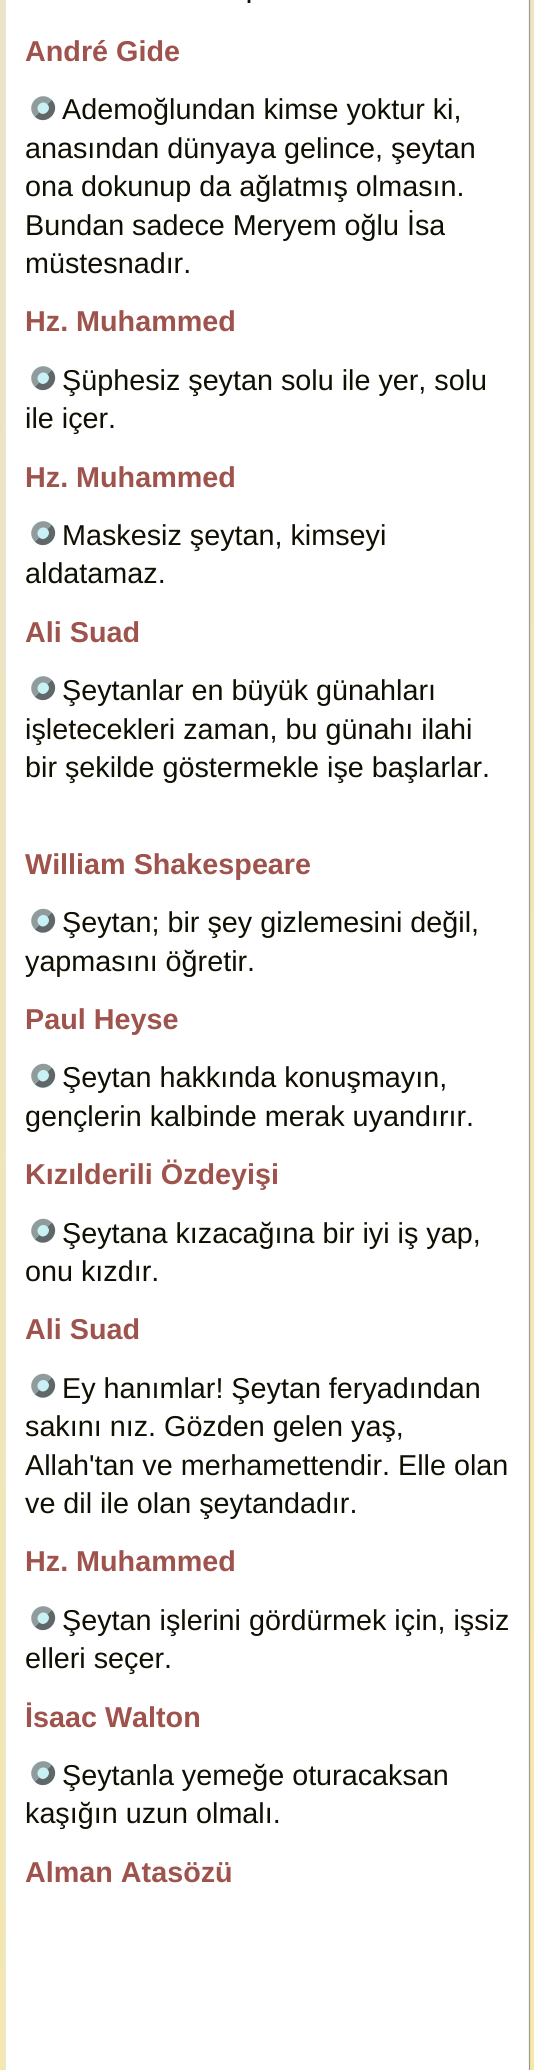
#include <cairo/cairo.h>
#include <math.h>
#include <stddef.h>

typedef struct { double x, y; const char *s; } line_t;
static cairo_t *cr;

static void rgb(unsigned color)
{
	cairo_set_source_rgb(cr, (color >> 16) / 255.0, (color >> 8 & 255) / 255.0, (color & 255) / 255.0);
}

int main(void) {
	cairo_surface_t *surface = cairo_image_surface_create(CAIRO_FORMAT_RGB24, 534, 2070);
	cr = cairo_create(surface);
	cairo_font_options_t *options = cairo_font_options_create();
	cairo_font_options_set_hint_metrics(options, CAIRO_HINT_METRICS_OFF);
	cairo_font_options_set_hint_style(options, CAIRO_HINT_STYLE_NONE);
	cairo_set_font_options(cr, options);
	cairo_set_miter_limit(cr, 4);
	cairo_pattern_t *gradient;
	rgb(0xffffff);
	cairo_paint(cr);
	gradient = cairo_pattern_create_linear(-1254, -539, 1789, 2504);
	cairo_pattern_add_color_stop_rgba(gradient, 0, 0.882, 0.875, 0.875, 1);
	cairo_pattern_add_color_stop_rgba(gradient, 1, 1, 0.922, 0.58, 1);
	cairo_set_source(cr, gradient);
	cairo_pattern_destroy(gradient);
	cairo_rectangle(cr, 0, 0, 534, 2070);
	cairo_fill(cr);
	rgb(0xffffff);
	cairo_rectangle(cr, 6, 0, 523, 2070);
	cairo_fill(cr);
	cairo_new_path(cr);
	cairo_move_to(cr, 527, -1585.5);
	cairo_curve_to(cr, 528.5, -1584, 529.5, -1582, 529.5, -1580);
	cairo_line_to(cr, 529.5, 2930);
	cairo_curve_to(cr, 529.5, 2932, 528.5, 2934, 527, 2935.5);
	cairo_curve_to(cr, 525.5, 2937.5, 523.5, 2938, 521, 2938);
	cairo_line_to(cr, 14, 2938);
	cairo_curve_to(cr, 11.5, 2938, 9.5, 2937.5, 8, 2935.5);
	rgb(0x9b9a90);
	cairo_set_line_width(cr, 1.2);
	cairo_stroke(cr);
	cairo_new_path(cr);
	cairo_move_to(cr, 8, 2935.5);
	cairo_curve_to(cr, 6.5, 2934, 5.5, 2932, 5.5, 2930);
	cairo_line_to(cr, 5.5, -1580);
	cairo_curve_to(cr, 5.5, -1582, 6.5, -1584, 8, -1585.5);
	cairo_curve_to(cr, 9.5, -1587.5, 11.5, -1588, 13.5, -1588);
	cairo_line_to(cr, 521, -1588);
	cairo_curve_to(cr, 523.5, -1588, 525.5, -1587.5, 527, -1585.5);
	rgb(0xe9e7d8);
	cairo_stroke(cr);
	rgb(0xc7f1f4);
	cairo_arc(cr, 43, 108, 12, 0, 2 * M_PI);
	cairo_fill(cr);
	cairo_new_path(cr);
	cairo_move_to(cr, 49.5, 102);
	cairo_curve_to(cr, 57.5, 110, 45, 122.5, 37, 114.5);
	rgb(0x616768);
	cairo_set_line_width(cr, 6.2);
	cairo_stroke(cr);
	cairo_new_path(cr);
	cairo_move_to(cr, 37, 114.5);
	cairo_curve_to(cr, 29, 106, 41, 94, 49.5, 102);
	rgb(0x919b9c);
	cairo_stroke(cr);
	rgb(0xc7f1f4);
	cairo_arc(cr, 43, 378, 12, 0, 2 * M_PI);
	cairo_fill(cr);
	cairo_new_path(cr);
	cairo_move_to(cr, 49.5, 372);
	cairo_curve_to(cr, 57.5, 380, 45, 392.5, 37, 384.5);
	rgb(0x616768);
	cairo_stroke(cr);
	cairo_new_path(cr);
	cairo_move_to(cr, 37, 384.5);
	cairo_curve_to(cr, 29, 376, 41, 364, 49.5, 372);
	rgb(0x919b9c);
	cairo_stroke(cr);
	rgb(0xc7f1f4);
	cairo_arc(cr, 43, 533, 12, 0, 2 * M_PI);
	cairo_fill(cr);
	cairo_new_path(cr);
	cairo_move_to(cr, 49.5, 527);
	cairo_curve_to(cr, 57.5, 535, 45, 547.5, 37, 539.5);
	rgb(0x616768);
	cairo_stroke(cr);
	cairo_new_path(cr);
	cairo_move_to(cr, 37, 539.5);
	cairo_curve_to(cr, 29, 531, 41, 519, 49.5, 527);
	rgb(0x919b9c);
	cairo_stroke(cr);
	rgb(0xc7f1f4);
	cairo_arc(cr, 43, 688, 12, 0, 2 * M_PI);
	cairo_fill(cr);
	cairo_new_path(cr);
	cairo_move_to(cr, 49.5, 682);
	cairo_curve_to(cr, 57.5, 690, 45, 702.5, 37, 694.5);
	rgb(0x616768);
	cairo_stroke(cr);
	cairo_new_path(cr);
	cairo_move_to(cr, 37, 694.5);
	cairo_curve_to(cr, 29, 686, 41, 674, 49.5, 682);
	rgb(0x919b9c);
	cairo_stroke(cr);
	rgb(0xc7f1f4);
	cairo_arc(cr, 43, 921, 12, 0, 2 * M_PI);
	cairo_fill(cr);
	cairo_new_path(cr);
	cairo_move_to(cr, 49.5, 914.5);
	cairo_curve_to(cr, 57.5, 922.5, 45, 935, 37, 927);
	rgb(0x616768);
	cairo_stroke(cr);
	cairo_new_path(cr);
	cairo_move_to(cr, 37, 927);
	cairo_curve_to(cr, 29, 918.5, 41, 906.5, 49.5, 914.5);
	rgb(0x919b9c);
	cairo_stroke(cr);
	rgb(0xc7f1f4);
	cairo_arc(cr, 43, 1076, 12, 0, 2 * M_PI);
	cairo_fill(cr);
	cairo_new_path(cr);
	cairo_move_to(cr, 49.5, 1069.5);
	cairo_curve_to(cr, 57.5, 1077.5, 45, 1090, 37, 1082);
	rgb(0x616768);
	cairo_stroke(cr);
	cairo_new_path(cr);
	cairo_move_to(cr, 37, 1082);
	cairo_curve_to(cr, 29, 1073.5, 41, 1061.5, 49.5, 1069.5);
	rgb(0x919b9c);
	cairo_stroke(cr);
	rgb(0xc7f1f4);
	cairo_arc(cr, 43, 1231, 12, 0, 2 * M_PI);
	cairo_fill(cr);
	cairo_new_path(cr);
	cairo_move_to(cr, 49.5, 1224.5);
	cairo_curve_to(cr, 57.5, 1232.5, 45, 1245, 37, 1237);
	rgb(0x616768);
	cairo_stroke(cr);
	cairo_new_path(cr);
	cairo_move_to(cr, 37, 1237);
	cairo_curve_to(cr, 29, 1228.5, 41, 1216.5, 49.5, 1224.5);
	rgb(0x919b9c);
	cairo_stroke(cr);
	rgb(0xc7f1f4);
	cairo_arc(cr, 43, 1386, 12, 0, 2 * M_PI);
	cairo_fill(cr);
	cairo_new_path(cr);
	cairo_move_to(cr, 49.5, 1379.5);
	cairo_curve_to(cr, 57.5, 1387.5, 45, 1400, 37, 1392);
	rgb(0x616768);
	cairo_stroke(cr);
	cairo_new_path(cr);
	cairo_move_to(cr, 37, 1392);
	cairo_curve_to(cr, 29, 1383.5, 41, 1371.5, 49.5, 1379.5);
	rgb(0x919b9c);
	cairo_stroke(cr);
	rgb(0xc7f1f4);
	cairo_arc(cr, 43, 1618, 12, 0, 2 * M_PI);
	cairo_fill(cr);
	cairo_new_path(cr);
	cairo_move_to(cr, 49.5, 1612);
	cairo_curve_to(cr, 57.5, 1620, 45, 1632.5, 37, 1624.5);
	rgb(0x616768);
	cairo_stroke(cr);
	cairo_new_path(cr);
	cairo_move_to(cr, 37, 1624.5);
	cairo_curve_to(cr, 29, 1616, 41, 1604, 49.5, 1612);
	rgb(0x919b9c);
	cairo_stroke(cr);
	rgb(0xc7f1f4);
	cairo_arc(cr, 43, 1773, 12, 0, 2 * M_PI);
	cairo_fill(cr);
	cairo_new_path(cr);
	cairo_move_to(cr, 49.5, 1767);
	cairo_curve_to(cr, 57.5, 1775, 45, 1787.5, 37, 1779.5);
	rgb(0x616768);
	cairo_stroke(cr);
	cairo_new_path(cr);
	cairo_move_to(cr, 37, 1779.5);
	cairo_curve_to(cr, 29, 1771, 41, 1759, 49.5, 1767);
	rgb(0x919b9c);
	cairo_stroke(cr);
	cairo_select_font_face(cr, "Liberation Sans", CAIRO_FONT_SLANT_NORMAL, CAIRO_FONT_WEIGHT_NORMAL);
	cairo_set_font_size(cr, 28.75);
	rgb(0x100f02);
	cairo_move_to(cr, 245, 3);
	cairo_show_text(cr, ".");
	cairo_select_font_face(cr, "Liberation Sans", CAIRO_FONT_SLANT_NORMAL, CAIRO_FONT_WEIGHT_BOLD);
	rgb(0x9e534c);
	cairo_move_to(cr, 25, 61);
	cairo_show_text(cr, "André Gide");
	cairo_select_font_face(cr, "Liberation Sans", CAIRO_FONT_SLANT_NORMAL, CAIRO_FONT_WEIGHT_NORMAL);
	rgb(0x100f02);
	{
		static const line_t items[] = {
			{62, 119, "Ademoğlundan kimse yoktur ki,"},
			{25, 158, "anasından dünyaya gelince, şeytan"},
			{25, 196, "ona dokunup da ağlatmış olmasın."},
			{25, 235, "Bundan sadece Meryem oğlu İsa"},
			{25, 273, "müstesnadır."},
		};
		for (size_t i = 0; i < sizeof items / sizeof *items; i++) {
			cairo_move_to(cr, items[i].x, items[i].y);
			cairo_show_text(cr, items[i].s);
		}
	}
	cairo_select_font_face(cr, "Liberation Sans", CAIRO_FONT_SLANT_NORMAL, CAIRO_FONT_WEIGHT_BOLD);
	rgb(0x9e534c);
	cairo_move_to(cr, 25, 331);
	cairo_show_text(cr, "Hz. Muhammed");
	cairo_select_font_face(cr, "Liberation Sans", CAIRO_FONT_SLANT_NORMAL, CAIRO_FONT_WEIGHT_NORMAL);
	rgb(0x100f02);
	cairo_move_to(cr, 62, 390);
	cairo_show_text(cr, "Şüphesiz şeytan solu ile yer, solu");
	cairo_move_to(cr, 25, 428);
	cairo_show_text(cr, "ile içer.");
	cairo_select_font_face(cr, "Liberation Sans", CAIRO_FONT_SLANT_NORMAL, CAIRO_FONT_WEIGHT_BOLD);
	rgb(0x9e534c);
	cairo_move_to(cr, 25, 487);
	cairo_show_text(cr, "Hz. Muhammed");
	cairo_select_font_face(cr, "Liberation Sans", CAIRO_FONT_SLANT_NORMAL, CAIRO_FONT_WEIGHT_NORMAL);
	rgb(0x100f02);
	cairo_move_to(cr, 62, 545);
	cairo_show_text(cr, "Maskesiz şeytan, kimseyi");
	cairo_move_to(cr, 25, 583);
	cairo_show_text(cr, "aldatamaz.");
	cairo_select_font_face(cr, "Liberation Sans", CAIRO_FONT_SLANT_NORMAL, CAIRO_FONT_WEIGHT_BOLD);
	rgb(0x9e534c);
	cairo_move_to(cr, 25, 642);
	cairo_show_text(cr, "Ali Suad");
	cairo_select_font_face(cr, "Liberation Sans", CAIRO_FONT_SLANT_NORMAL, CAIRO_FONT_WEIGHT_NORMAL);
	rgb(0x100f02);
	{
		static const line_t items[] = {
			{62, 700, "Şeytanlar en büyük günahları"},
			{25, 739, "işletecekleri zaman, bu günahı ilahi"},
			{25, 777, "bir şekilde göstermekle işe başlarlar."},
		};
		for (size_t i = 0; i < sizeof items / sizeof *items; i++) {
			cairo_move_to(cr, items[i].x, items[i].y);
			cairo_show_text(cr, items[i].s);
		}
	}
	cairo_select_font_face(cr, "Liberation Sans", CAIRO_FONT_SLANT_NORMAL, CAIRO_FONT_WEIGHT_BOLD);
	rgb(0x9e534c);
	cairo_move_to(cr, 25, 874);
	cairo_show_text(cr, "William Shakespeare");
	cairo_select_font_face(cr, "Liberation Sans", CAIRO_FONT_SLANT_NORMAL, CAIRO_FONT_WEIGHT_NORMAL);
	rgb(0x100f02);
	cairo_move_to(cr, 62, 932);
	cairo_show_text(cr, "Şeytan; bir şey gizlemesini değil,");
	cairo_move_to(cr, 25, 971);
	cairo_show_text(cr, "yapmasını öğretir.");
	cairo_select_font_face(cr, "Liberation Sans", CAIRO_FONT_SLANT_NORMAL, CAIRO_FONT_WEIGHT_BOLD);
	rgb(0x9e534c);
	cairo_move_to(cr, 25, 1029);
	cairo_show_text(cr, "Paul Heyse");
	cairo_select_font_face(cr, "Liberation Sans", CAIRO_FONT_SLANT_NORMAL, CAIRO_FONT_WEIGHT_NORMAL);
	rgb(0x100f02);
	cairo_move_to(cr, 62, 1087);
	cairo_show_text(cr, "Şeytan hakkında konuşmayın,");
	cairo_move_to(cr, 25, 1126);
	cairo_show_text(cr, "gençlerin kalbinde merak uyandırır.");
	cairo_select_font_face(cr, "Liberation Sans", CAIRO_FONT_SLANT_NORMAL, CAIRO_FONT_WEIGHT_BOLD);
	rgb(0x9e534c);
	cairo_move_to(cr, 25, 1184);
	cairo_show_text(cr, "Kızılderili Özdeyişi");
	cairo_select_font_face(cr, "Liberation Sans", CAIRO_FONT_SLANT_NORMAL, CAIRO_FONT_WEIGHT_NORMAL);
	rgb(0x100f02);
	cairo_move_to(cr, 62, 1243);
	cairo_show_text(cr, "Şeytana kızacağına bir iyi iş yap,");
	cairo_move_to(cr, 25, 1281);
	cairo_show_text(cr, "onu kızdır.");
	cairo_select_font_face(cr, "Liberation Sans", CAIRO_FONT_SLANT_NORMAL, CAIRO_FONT_WEIGHT_BOLD);
	rgb(0x9e534c);
	cairo_move_to(cr, 25, 1339);
	cairo_show_text(cr, "Ali Suad");
	cairo_select_font_face(cr, "Liberation Sans", CAIRO_FONT_SLANT_NORMAL, CAIRO_FONT_WEIGHT_NORMAL);
	rgb(0x100f02);
	{
		static const line_t items[] = {
			{62, 1398, "Ey hanımlar! Şeytan feryadından"},
			{25, 1436, "sakını nız. Gözden gelen yaş,"},
			{25, 1475, "Allah'tan ve merhamettendir. Elle olan"},
			{25, 1513, "ve dil ile olan şeytandadır."},
		};
		for (size_t i = 0; i < sizeof items / sizeof *items; i++) {
			cairo_move_to(cr, items[i].x, items[i].y);
			cairo_show_text(cr, items[i].s);
		}
	}
	cairo_select_font_face(cr, "Liberation Sans", CAIRO_FONT_SLANT_NORMAL, CAIRO_FONT_WEIGHT_BOLD);
	rgb(0x9e534c);
	cairo_move_to(cr, 25, 1571);
	cairo_show_text(cr, "Hz. Muhammed");
	cairo_select_font_face(cr, "Liberation Sans", CAIRO_FONT_SLANT_NORMAL, CAIRO_FONT_WEIGHT_NORMAL);
	rgb(0x100f02);
	cairo_move_to(cr, 62, 1630);
	cairo_show_text(cr, "Şeytan işlerini gördürmek için, işsiz");
	cairo_move_to(cr, 25, 1668);
	cairo_show_text(cr, "elleri seçer.");
	cairo_select_font_face(cr, "Liberation Sans", CAIRO_FONT_SLANT_NORMAL, CAIRO_FONT_WEIGHT_BOLD);
	rgb(0x9e534c);
	cairo_move_to(cr, 25, 1727);
	cairo_show_text(cr, "İsaac Walton");
	cairo_select_font_face(cr, "Liberation Sans", CAIRO_FONT_SLANT_NORMAL, CAIRO_FONT_WEIGHT_NORMAL);
	rgb(0x100f02);
	cairo_move_to(cr, 62, 1785);
	cairo_show_text(cr, "Şeytanla yemeğe oturacaksan");
	cairo_move_to(cr, 25, 1823);
	cairo_show_text(cr, "kaşığın uzun olmalı.");
	cairo_select_font_face(cr, "Liberation Sans", CAIRO_FONT_SLANT_NORMAL, CAIRO_FONT_WEIGHT_BOLD);
	rgb(0x9e534c);
	cairo_move_to(cr, 25, 1882);
	cairo_show_text(cr, "Alman Atasözü");
	cairo_surface_write_to_png(surface, "page.png");
	cairo_font_options_destroy(options);
	cairo_destroy(cr);
	cairo_surface_destroy(surface);
	return 0;
}
